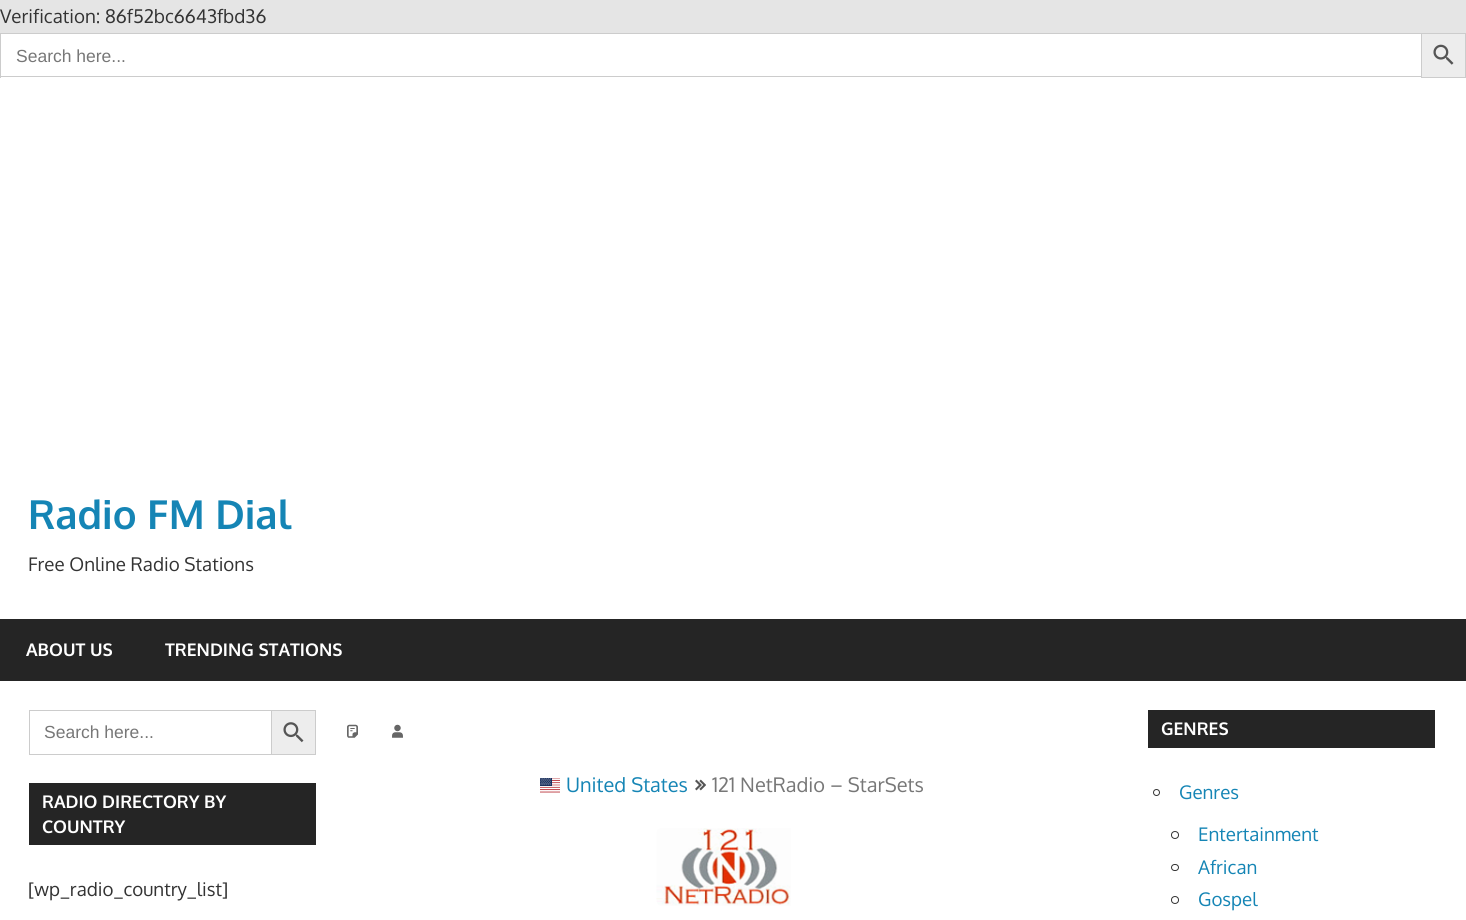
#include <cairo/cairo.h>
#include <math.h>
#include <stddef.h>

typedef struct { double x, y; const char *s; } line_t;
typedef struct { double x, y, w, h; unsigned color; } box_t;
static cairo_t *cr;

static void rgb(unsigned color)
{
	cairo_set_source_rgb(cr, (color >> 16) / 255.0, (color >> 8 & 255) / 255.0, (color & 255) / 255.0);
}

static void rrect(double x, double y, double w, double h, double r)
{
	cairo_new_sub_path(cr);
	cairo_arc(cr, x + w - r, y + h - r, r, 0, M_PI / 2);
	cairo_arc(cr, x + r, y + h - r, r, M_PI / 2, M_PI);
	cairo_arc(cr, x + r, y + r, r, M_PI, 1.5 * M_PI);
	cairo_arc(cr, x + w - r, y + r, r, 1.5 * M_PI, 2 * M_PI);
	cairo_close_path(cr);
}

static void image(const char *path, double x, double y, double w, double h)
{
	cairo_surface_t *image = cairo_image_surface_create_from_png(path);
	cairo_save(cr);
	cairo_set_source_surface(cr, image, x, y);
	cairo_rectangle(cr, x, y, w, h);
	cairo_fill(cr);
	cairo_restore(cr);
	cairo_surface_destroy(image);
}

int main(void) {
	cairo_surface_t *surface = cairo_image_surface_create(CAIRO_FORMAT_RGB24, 1466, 920);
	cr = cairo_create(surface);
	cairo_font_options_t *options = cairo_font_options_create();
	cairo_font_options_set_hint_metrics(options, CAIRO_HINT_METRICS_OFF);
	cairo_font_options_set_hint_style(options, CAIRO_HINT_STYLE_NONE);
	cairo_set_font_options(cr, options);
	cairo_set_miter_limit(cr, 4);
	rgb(0xe5e5e5);
	cairo_paint(cr);
	{
		static const box_t items[] = {
			{1, 34, 1420, 44, 0xffffff},
			{0, 33, 1421, 1, 0xcccccc},
			{0, 76, 1421, 1, 0xcccccc},
			{0, 33, 1, 45, 0xcccccc},
		};
		for (size_t i = 0; i < sizeof items / sizeof *items; i++) {
			rgb(items[i].color);
			cairo_rectangle(cr, items[i].x, items[i].y, items[i].w, items[i].h);
			cairo_fill(cr);
		}
	}
	rgb(0xededed);
	cairo_rectangle(cr, 1421.5, 33.5, 44, 44);
	cairo_fill_preserve(cr);
	rgb(0xcccccc);
	cairo_set_line_width(cr, 1);
	cairo_stroke(cr);
	image("img/1.png", 1433, 44, 21, 21);
	{
		static const box_t items[] = {
			{0, 78, 1466, 541, 0xffffff},
			{0, 619, 1466, 62, 0x252525},
			{0, 681, 1466, 239, 0xffffff},
			{29, 710, 242, 1, 0xcccccc},
			{29, 754, 242, 1, 0xcccccc},
			{29, 710, 1, 45, 0xcccccc},
		};
		for (size_t i = 0; i < sizeof items / sizeof *items; i++) {
			rgb(items[i].color);
			cairo_rectangle(cr, items[i].x, items[i].y, items[i].w, items[i].h);
			cairo_fill(cr);
		}
	}
	rgb(0xededed);
	cairo_rectangle(cr, 271.5, 710.5, 44, 44);
	cairo_fill_preserve(cr);
	rgb(0xcccccc);
	cairo_stroke(cr);
	image("img/2.png", 283, 722, 21, 21);
	rgb(0x252525);
	cairo_rectangle(cr, 29, 783, 287, 62);
	cairo_fill(cr);
	image("img/3.png", 347, 724, 11, 14);
	image("img/4.png", 392, 724, 11, 14);
	image("img/5.png", 540, 778, 20, 15);
	image("img/6.png", 695, 779, 11, 12);
	image("img/7.png", 656, 828, 135, 78);
	cairo_rectangle(cr, 1148, 710, 287, 38);
	cairo_fill(cr);
	cairo_arc(cr, 1156.5, 792.5, 3, 0, 2 * M_PI);
	rgb(0x333333);
	cairo_stroke(cr);
	cairo_arc(cr, 1175, 835, 3.5, 0, 2 * M_PI);
	cairo_stroke(cr);
	rrect(1171.5, 864.5, 7, 6, 3);
	cairo_stroke(cr);
	cairo_arc(cr, 1175, 900, 3.5, 0, 2 * M_PI);
	cairo_stroke(cr);
	cairo_select_font_face(cr, "Oxygen", CAIRO_FONT_SLANT_NORMAL, CAIRO_FONT_WEIGHT_NORMAL);
	cairo_set_font_size(cr, 18.75);
	cairo_move_to(cr, 0, 23);
	cairo_show_text(cr, "Verification: 86f52bc6643fbd36");
	cairo_select_font_face(cr, "Liberation Sans", CAIRO_FONT_SLANT_NORMAL, CAIRO_FONT_WEIGHT_NORMAL);
	cairo_set_font_size(cr, 17.5);
	rgb(0x777777);
	cairo_move_to(cr, 16, 62);
	cairo_show_text(cr, "Search here...");
	cairo_select_font_face(cr, "Oxygen", CAIRO_FONT_SLANT_NORMAL, CAIRO_FONT_WEIGHT_BOLD);
	cairo_set_font_size(cr, 40);
	rgb(0x1585b5);
	cairo_move_to(cr, 28, 529);
	cairo_show_text(cr, "Radio FM Dial");
	cairo_select_font_face(cr, "Oxygen", CAIRO_FONT_SLANT_NORMAL, CAIRO_FONT_WEIGHT_NORMAL);
	cairo_set_font_size(cr, 18.75);
	rgb(0x333333);
	cairo_move_to(cr, 28, 571);
	cairo_show_text(cr, "Free Online Radio Stations");
	cairo_select_font_face(cr, "Oxygen", CAIRO_FONT_SLANT_NORMAL, CAIRO_FONT_WEIGHT_BOLD);
	cairo_set_font_size(cr, 17.5);
	rgb(0xffffff);
	cairo_move_to(cr, 26, 656);
	cairo_show_text(cr, "ABOUT US");
	cairo_move_to(cr, 165, 656);
	cairo_show_text(cr, "TRENDING STATIONS");
	cairo_select_font_face(cr, "Liberation Sans", CAIRO_FONT_SLANT_NORMAL, CAIRO_FONT_WEIGHT_NORMAL);
	rgb(0x777777);
	cairo_move_to(cr, 44, 738);
	cairo_show_text(cr, "Search here...");
	cairo_select_font_face(cr, "Oxygen", CAIRO_FONT_SLANT_NORMAL, CAIRO_FONT_WEIGHT_BOLD);
	rgb(0xffffff);
	cairo_move_to(cr, 42, 808);
	cairo_show_text(cr, "RADIO DIRECTORY BY");
	cairo_move_to(cr, 42, 833);
	cairo_show_text(cr, "COUNTRY");
	cairo_select_font_face(cr, "Oxygen", CAIRO_FONT_SLANT_NORMAL, CAIRO_FONT_WEIGHT_NORMAL);
	cairo_set_font_size(cr, 18.75);
	rgb(0x333333);
	cairo_move_to(cr, 28, 896);
	cairo_show_text(cr, "[wp_radio_country_list]");
	cairo_set_font_size(cr, 20);
	rgb(0x1585b5);
	cairo_move_to(cr, 566, 792);
	cairo_show_text(cr, "United States");
	rgb(0x777777);
	cairo_move_to(cr, 712, 792);
	cairo_show_text(cr, "121 NetRadio – StarSets");
	cairo_select_font_face(cr, "Oxygen", CAIRO_FONT_SLANT_NORMAL, CAIRO_FONT_WEIGHT_BOLD);
	cairo_set_font_size(cr, 17.5);
	rgb(0xffffff);
	cairo_move_to(cr, 1161, 735);
	cairo_show_text(cr, "GENRES");
	cairo_select_font_face(cr, "Oxygen", CAIRO_FONT_SLANT_NORMAL, CAIRO_FONT_WEIGHT_NORMAL);
	cairo_set_font_size(cr, 18.75);
	rgb(0x1585b5);
	{
		static const line_t items[] = {
			{1179, 799, "Genres"},
			{1198, 841, "Entertainment"},
			{1198, 874, "African"},
			{1198, 906, "Gospel"},
		};
		for (size_t i = 0; i < sizeof items / sizeof *items; i++) {
			cairo_move_to(cr, items[i].x, items[i].y);
			cairo_show_text(cr, items[i].s);
		}
	}
	cairo_surface_write_to_png(surface, "page.png");
	cairo_font_options_destroy(options);
	cairo_destroy(cr);
	cairo_surface_destroy(surface);
	return 0;
}
